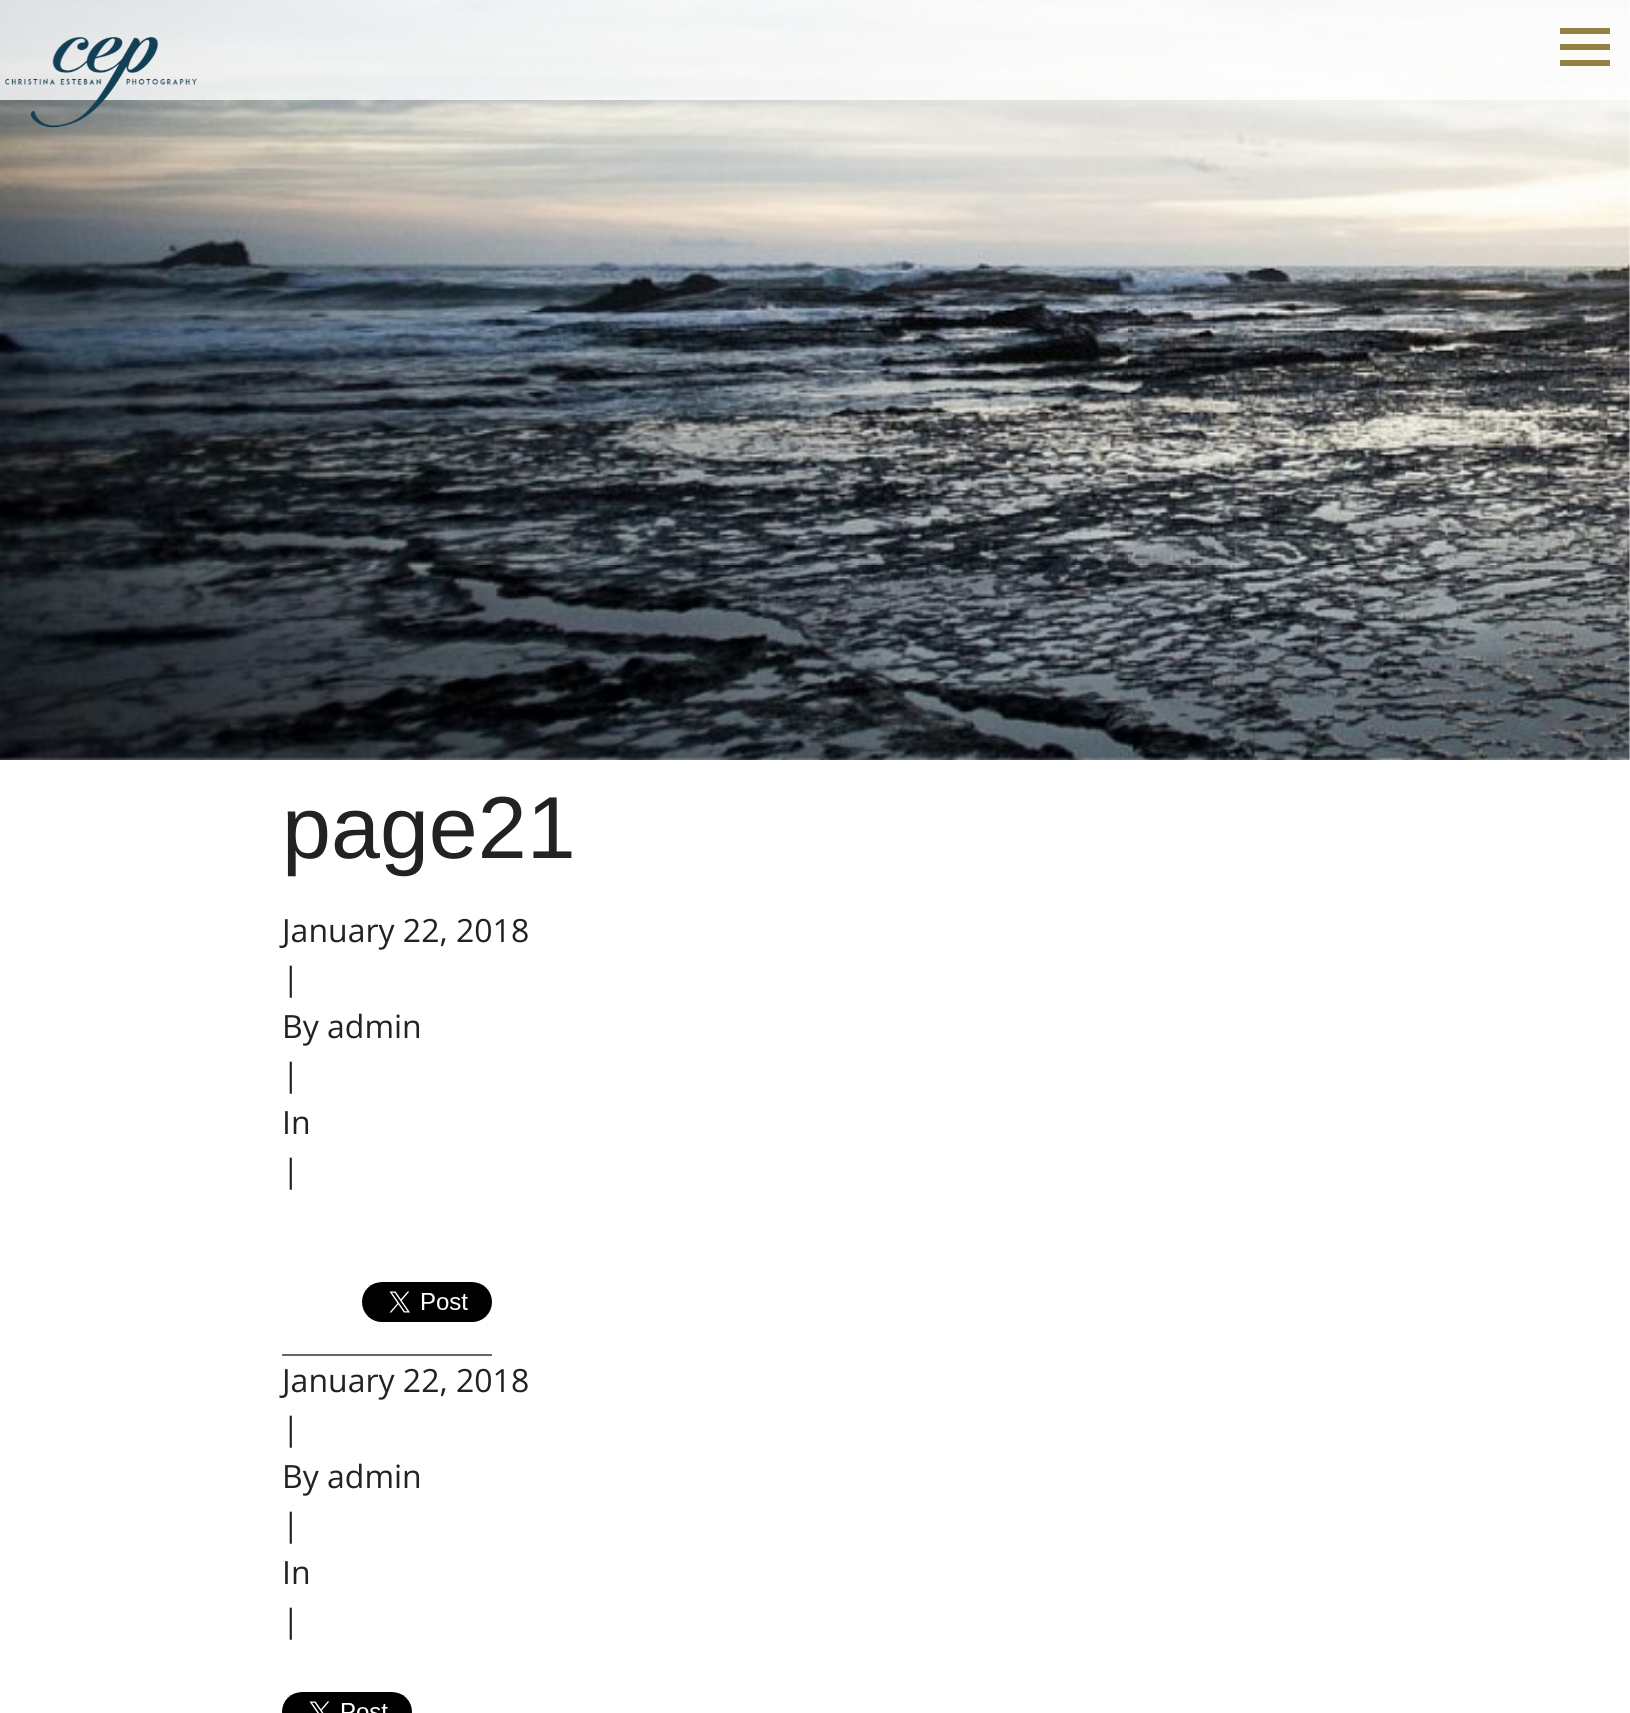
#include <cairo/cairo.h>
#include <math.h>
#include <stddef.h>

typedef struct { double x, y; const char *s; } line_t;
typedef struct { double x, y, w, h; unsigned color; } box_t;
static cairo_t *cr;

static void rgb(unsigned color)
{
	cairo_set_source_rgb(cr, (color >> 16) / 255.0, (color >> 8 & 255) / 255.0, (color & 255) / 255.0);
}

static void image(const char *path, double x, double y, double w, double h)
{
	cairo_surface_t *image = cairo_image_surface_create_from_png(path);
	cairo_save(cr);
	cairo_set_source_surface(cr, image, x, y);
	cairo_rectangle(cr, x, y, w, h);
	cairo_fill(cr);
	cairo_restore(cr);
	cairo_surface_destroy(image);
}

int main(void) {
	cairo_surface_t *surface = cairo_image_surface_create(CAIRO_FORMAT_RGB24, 1630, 1713);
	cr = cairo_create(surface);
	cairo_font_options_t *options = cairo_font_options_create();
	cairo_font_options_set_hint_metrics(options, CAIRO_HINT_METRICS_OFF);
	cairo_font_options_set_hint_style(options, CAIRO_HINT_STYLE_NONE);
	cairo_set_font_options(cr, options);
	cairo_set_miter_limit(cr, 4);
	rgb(0xffffff);
	cairo_paint(cr);
	image("img/1.png", 0, 0, 1630, 760);
	cairo_set_source_rgba(cr, 1, 1, 1, 0.8);
	cairo_rectangle(cr, 0, 0, 1630, 100);
	cairo_fill(cr);
	image("img/2.png", 5, 37, 192, 91);
	{
		static const box_t items[] = {
			{1560, 44, 50, 6, 0x938043},
			{1560, 28, 50, 6, 0x938043},
			{1560, 60, 50, 6, 0x938043},
			{282, 1354, 210, 2, 0x676767},
		};
		for (size_t i = 0; i < sizeof items / sizeof *items; i++) {
			rgb(items[i].color);
			cairo_rectangle(cr, items[i].x, items[i].y, items[i].w, items[i].h);
			cairo_fill(cr);
		}
	}
	image("img/3.png", 362, 1282, 130, 40);
	image("img/4.png", 282, 1692, 130, 21);
	cairo_select_font_face(cr, "Liberation Sans", CAIRO_FONT_SLANT_NORMAL, CAIRO_FONT_WEIGHT_NORMAL);
	cairo_set_font_size(cr, 88);
	rgb(0x222222);
	cairo_move_to(cr, 282, 858);
	cairo_show_text(cr, "page21");
	cairo_select_font_face(cr, "Open Sans", CAIRO_FONT_SLANT_NORMAL, CAIRO_FONT_WEIGHT_NORMAL);
	cairo_set_font_size(cr, 32);
	{
		static const line_t items[] = {
			{282, 942, "January 22, 2018"},
			{282, 990, "|"},
			{282, 1038, "By admin"},
			{282, 1086, "|"},
			{282, 1134, "In"},
			{282, 1182, "|"},
			{282, 1392, "January 22, 2018"},
			{282, 1440, "|"},
			{282, 1488, "By admin"},
			{282, 1536, "|"},
			{282, 1584, "In"},
			{282, 1632, "|"},
		};
		for (size_t i = 0; i < sizeof items / sizeof *items; i++) {
			cairo_move_to(cr, items[i].x, items[i].y);
			cairo_show_text(cr, items[i].s);
		}
	}
	cairo_surface_write_to_png(surface, "page.png");
	cairo_font_options_destroy(options);
	cairo_destroy(cr);
	cairo_surface_destroy(surface);
	return 0;
}
